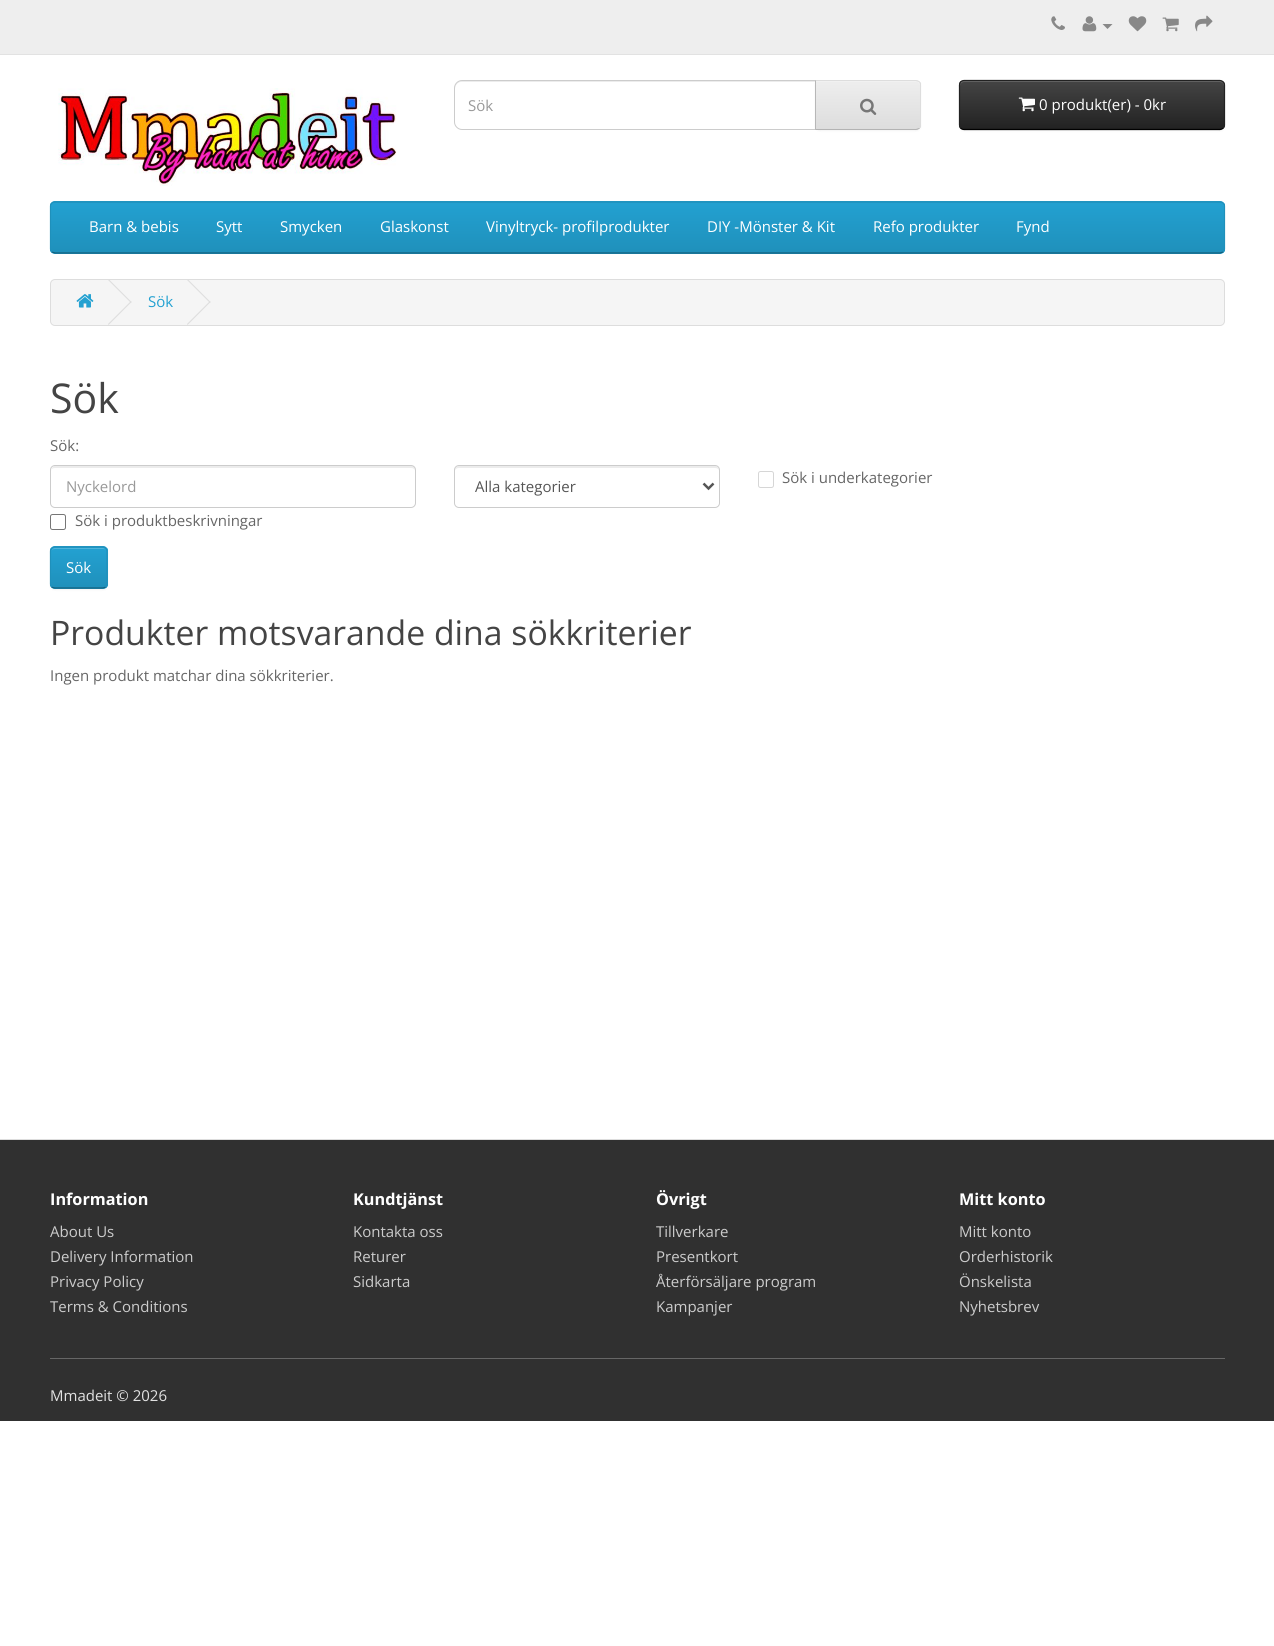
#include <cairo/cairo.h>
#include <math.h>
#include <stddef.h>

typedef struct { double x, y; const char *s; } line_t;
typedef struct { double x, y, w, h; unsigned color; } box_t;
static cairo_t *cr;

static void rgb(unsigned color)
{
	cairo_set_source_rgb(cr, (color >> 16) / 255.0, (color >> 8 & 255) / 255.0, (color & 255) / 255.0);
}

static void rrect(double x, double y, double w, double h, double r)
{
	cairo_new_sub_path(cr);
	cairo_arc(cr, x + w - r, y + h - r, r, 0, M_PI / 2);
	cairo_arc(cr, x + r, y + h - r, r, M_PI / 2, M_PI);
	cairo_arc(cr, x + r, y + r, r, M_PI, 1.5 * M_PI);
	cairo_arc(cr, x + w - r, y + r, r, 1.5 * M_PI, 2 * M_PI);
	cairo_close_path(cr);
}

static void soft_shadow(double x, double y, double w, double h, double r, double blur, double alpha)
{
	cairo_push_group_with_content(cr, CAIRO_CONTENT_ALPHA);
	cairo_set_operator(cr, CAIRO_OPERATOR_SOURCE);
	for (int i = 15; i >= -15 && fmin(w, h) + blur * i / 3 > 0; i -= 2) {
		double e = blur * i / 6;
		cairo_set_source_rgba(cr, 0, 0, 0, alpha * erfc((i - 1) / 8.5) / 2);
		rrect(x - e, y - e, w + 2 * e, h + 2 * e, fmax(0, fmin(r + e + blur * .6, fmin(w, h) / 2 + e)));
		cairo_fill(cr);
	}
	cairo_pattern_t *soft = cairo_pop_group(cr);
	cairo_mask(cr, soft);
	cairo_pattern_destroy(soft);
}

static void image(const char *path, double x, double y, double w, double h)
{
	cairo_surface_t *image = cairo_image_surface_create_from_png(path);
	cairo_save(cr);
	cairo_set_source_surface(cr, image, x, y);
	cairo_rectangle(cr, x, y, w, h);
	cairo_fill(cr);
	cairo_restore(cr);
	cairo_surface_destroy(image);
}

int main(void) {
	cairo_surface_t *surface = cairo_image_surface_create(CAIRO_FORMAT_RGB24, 1274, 1646);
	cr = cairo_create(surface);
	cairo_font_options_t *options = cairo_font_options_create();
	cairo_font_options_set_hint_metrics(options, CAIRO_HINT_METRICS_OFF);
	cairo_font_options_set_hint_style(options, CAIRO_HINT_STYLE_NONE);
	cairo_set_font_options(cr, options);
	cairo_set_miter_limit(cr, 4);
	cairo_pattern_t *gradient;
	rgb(0xffffff);
	cairo_paint(cr);
	rgb(0xeeeeee);
	cairo_rectangle(cr, 0, 0, 1274, 54);
	cairo_fill(cr);
	rgb(0xe2e2e2);
	cairo_rectangle(cr, 0, 54, 1274, 1);
	cairo_fill(cr);
	image("img/1.png", 1051, 16, 14, 14);
	image("img/2.png", 1082, 16, 15, 16);
	rgb(0x888888);
	cairo_new_path(cr);
	cairo_move_to(cr, 1102.5, 24);
	cairo_line_to(cr, 1112.5, 24);
	cairo_line_to(cr, 1107.5, 29);
	cairo_close_path(cr);
	cairo_fill(cr);
	image("img/3.png", 1128, 16, 19, 16);
	image("img/4.png", 1162, 17, 17, 15);
	image("img/5.png", 1195, 15, 18, 17);
	image("img/6.png", 58, 88, 339, 98);
	rgb(0xececec);
	cairo_new_path(cr);
	cairo_move_to(cr, 461, 82);
	cairo_line_to(cr, 815, 82);
	cairo_line_to(cr, 815, 81);
	cairo_line_to(cr, 461, 81);
	cairo_curve_to(cr, 458, 81, 455, 84, 455, 87);
	cairo_line_to(cr, 455, 89);
	cairo_curve_to(cr, 455, 85, 458, 82, 461, 82);
	cairo_close_path(cr);
	cairo_fill(cr);
	cairo_new_path(cr);
	cairo_move_to(cr, 462, 80.5);
	cairo_line_to(cr, 815.5, 80.5);
	cairo_line_to(cr, 815.5, 129.5);
	cairo_line_to(cr, 462, 129.5);
	cairo_curve_to(cr, 458, 129.5, 454.5, 126, 454.5, 122);
	cairo_line_to(cr, 454.5, 88);
	cairo_curve_to(cr, 454.5, 84, 458, 80.5, 462, 80.5);
	cairo_close_path(cr);
	rgb(0xcccccc);
	cairo_set_line_width(cr, 1);
	cairo_stroke(cr);
	rgb(0x000000);
	soft_shadow(815, 81, 106, 50, 5, 1, 0.05);
	cairo_save(cr);
	cairo_new_path(cr);
	cairo_move_to(cr, 815, 80);
	cairo_line_to(cr, 916, 80);
	cairo_curve_to(cr, 919, 80, 921, 82, 921, 85);
	cairo_line_to(cr, 921, 125);
	cairo_curve_to(cr, 921, 128, 919, 130, 916, 130);
	cairo_line_to(cr, 815, 130);
	cairo_close_path(cr);
	cairo_clip(cr);
	gradient = cairo_pattern_create_linear(868, 81, 868, 129);
	cairo_pattern_add_color_stop_rgba(gradient, 0, 0.933, 0.933, 0.933, 1);
	cairo_pattern_add_color_stop_rgba(gradient, 1, 0.867, 0.867, 0.867, 1);
	cairo_set_source(cr, gradient);
	cairo_pattern_destroy(gradient);
	cairo_rectangle(cr, 816, 81, 105, 48);
	cairo_fill(cr);
	cairo_restore(cr);
	rgb(0xf1f1f1);
	cairo_new_path(cr);
	cairo_move_to(cr, 816, 82);
	cairo_line_to(cr, 916, 82);
	cairo_curve_to(cr, 918, 82, 920, 84, 920, 86);
	cairo_line_to(cr, 920, 85);
	cairo_curve_to(cr, 920, 83, 918, 81, 916, 81);
	cairo_line_to(cr, 816, 81);
	cairo_close_path(cr);
	cairo_fill(cr);
	rgb(0xdddddd);
	cairo_new_path(cr);
	cairo_move_to(cr, 815, 80);
	cairo_line_to(cr, 816, 81);
	cairo_line_to(cr, 916, 81);
	cairo_line_to(cr, 919, 82);
	cairo_line_to(cr, 920, 82);
	cairo_curve_to(cr, 919, 81, 918, 80, 916, 80);
	cairo_close_path(cr);
	cairo_fill(cr);
	cairo_new_path(cr);
	cairo_move_to(cr, 920, 82);
	cairo_curve_to(cr, 921, 82, 921, 84, 921, 85);
	cairo_line_to(cr, 921, 125);
	cairo_curve_to(cr, 921, 126, 921, 128, 920, 128);
	cairo_line_to(cr, 919, 128);
	cairo_curve_to(cr, 920, 127, 920, 126, 920, 125);
	cairo_line_to(cr, 920, 85);
	cairo_curve_to(cr, 920, 84, 920, 83, 919, 82);
	cairo_close_path(cr);
	cairo_fill(cr);
	rgb(0xb3b3b3);
	cairo_new_path(cr);
	cairo_move_to(cr, 916, 130);
	cairo_curve_to(cr, 918, 130, 919, 129, 920, 128);
	cairo_line_to(cr, 919, 128);
	cairo_line_to(cr, 916, 129);
	cairo_line_to(cr, 816, 129);
	cairo_line_to(cr, 815, 130);
	cairo_close_path(cr);
	cairo_fill(cr);
	rgb(0xb7b7b7);
	cairo_new_path(cr);
	cairo_move_to(cr, 815, 80);
	cairo_line_to(cr, 815, 130);
	cairo_line_to(cr, 816, 129);
	cairo_line_to(cr, 816, 81);
	cairo_close_path(cr);
	cairo_fill(cr);
	image("img/7.png", 860, 98, 17, 17);
	rgb(0x000000);
	soft_shadow(959, 81, 266, 50, 5, 1, 0.05);
	cairo_save(cr);
	rrect(959, 80, 266, 50, 5);
	cairo_clip(cr);
	gradient = cairo_pattern_create_linear(1092, 81, 1092, 129);
	cairo_pattern_add_color_stop_rgba(gradient, 0, 0.267, 0.267, 0.267, 1);
	cairo_pattern_add_color_stop_rgba(gradient, 1, 0.133, 0.133, 0.133, 1);
	cairo_set_source(cr, gradient);
	cairo_pattern_destroy(gradient);
	cairo_rectangle(cr, 959, 81, 266, 48);
	cairo_fill(cr);
	cairo_restore(cr);
	rgb(0x696969);
	cairo_new_path(cr);
	cairo_move_to(cr, 964, 82);
	cairo_line_to(cr, 1220, 82);
	cairo_curve_to(cr, 1222, 82, 1224, 84, 1224, 86);
	cairo_line_to(cr, 1224, 85);
	cairo_curve_to(cr, 1224, 83, 1222, 81, 1220, 81);
	cairo_line_to(cr, 964, 81);
	cairo_curve_to(cr, 962, 81, 960, 83, 960, 85);
	cairo_line_to(cr, 960, 86);
	cairo_curve_to(cr, 960, 84, 962, 82, 964, 82);
	cairo_close_path(cr);
	cairo_fill(cr);
	cairo_new_path(cr);
	cairo_move_to(cr, 1223, 128);
	cairo_curve_to(cr, 1222.5, 129, 1221, 129.5, 1220, 129.5);
	cairo_line_to(cr, 964, 129.5);
	cairo_curve_to(cr, 962.5, 129.5, 961.5, 129, 960.5, 128);
	rgb(0x000000);
	cairo_set_line_width(cr, 1.2);
	cairo_stroke(cr);
	cairo_new_path(cr);
	cairo_move_to(cr, 960.5, 128);
	cairo_curve_to(cr, 960, 127.5, 959.5, 126, 959.5, 125);
	cairo_line_to(cr, 959.5, 85);
	cairo_curve_to(cr, 959.5, 84, 960, 82.5, 960.5, 82);
	cairo_curve_to(cr, 961.5, 81, 962.5, 80.5, 964, 80.5);
	cairo_line_to(cr, 1220, 80.5);
	cairo_curve_to(cr, 1221, 80.5, 1222.5, 81, 1223, 82);
	cairo_curve_to(cr, 1224, 82.5, 1224.5, 84, 1224.5, 85);
	cairo_line_to(cr, 1224.5, 125);
	cairo_curve_to(cr, 1224.5, 126, 1224, 127.5, 1223, 128);
	rgb(0x222222);
	cairo_stroke(cr);
	image("img/8.png", 1018, 97, 17, 15);
	rgb(0x229ac8);
	rrect(50, 201, 1175, 53, 5);
	cairo_fill(cr);
	cairo_save(cr);
	rrect(50, 201, 1175, 53, 5);
	cairo_clip(cr);
	gradient = cairo_pattern_create_linear(638, 202, 638, 253);
	cairo_pattern_add_color_stop_rgba(gradient, 0, 0.137, 0.631, 0.82, 1);
	cairo_pattern_add_color_stop_rgba(gradient, 1, 0.122, 0.565, 0.733, 1);
	cairo_set_source(cr, gradient);
	cairo_pattern_destroy(gradient);
	cairo_rectangle(cr, 50, 203, 1175, 50);
	cairo_fill(cr);
	cairo_restore(cr);
	cairo_new_path(cr);
	cairo_move_to(cr, 1223, 252);
	cairo_line_to(cr, 1220, 253);
	cairo_line_to(cr, 55, 253);
	cairo_line_to(cr, 52, 252);
	rgb(0x145e7a);
	cairo_stroke(cr);
	cairo_new_path(cr);
	cairo_move_to(cr, 52, 252);
	cairo_curve_to(cr, 51, 251, 50.5, 250, 50.5, 249);
	cairo_line_to(cr, 50.5, 206);
	cairo_curve_to(cr, 50.5, 205, 51, 204, 52, 203);
	cairo_curve_to(cr, 52.5, 202.5, 54, 202, 55, 202);
	cairo_line_to(cr, 1220, 202);
	cairo_curve_to(cr, 1221, 202, 1222.5, 202.5, 1223, 203);
	cairo_curve_to(cr, 1224, 204, 1224.5, 205, 1224.5, 206);
	cairo_line_to(cr, 1224.5, 249);
	cairo_curve_to(cr, 1224.5, 250, 1224, 251, 1223, 252);
	rgb(0x1f90bb);
	cairo_stroke(cr);
	rgb(0xf5f5f5);
	rrect(50.5, 279.5, 1174, 46, 4.5);
	cairo_fill_preserve(cr);
	rgb(0xdddddd);
	cairo_set_line_width(cr, 1);
	cairo_stroke(cr);
	image("img/9.png", 76, 294, 18, 14);
	cairo_new_path(cr);
	cairo_move_to(cr, 108, 280);
	cairo_line_to(cr, 108.5, 279);
	cairo_line_to(cr, 131.5, 302);
	cairo_line_to(cr, 131, 303);
	cairo_close_path(cr);
	cairo_fill(cr);
	cairo_new_path(cr);
	cairo_move_to(cr, 108, 324);
	cairo_line_to(cr, 131, 301);
	cairo_line_to(cr, 131.5, 302);
	cairo_line_to(cr, 108.5, 325);
	cairo_close_path(cr);
	cairo_fill(cr);
	cairo_new_path(cr);
	cairo_move_to(cr, 187, 280);
	cairo_line_to(cr, 187.5, 279);
	cairo_line_to(cr, 210.5, 302);
	cairo_line_to(cr, 210, 303);
	cairo_close_path(cr);
	cairo_fill(cr);
	cairo_new_path(cr);
	cairo_move_to(cr, 187, 324);
	cairo_line_to(cr, 210, 301);
	cairo_line_to(cr, 210.5, 302);
	cairo_line_to(cr, 187.5, 325);
	cairo_close_path(cr);
	cairo_fill(cr);
	rgb(0xececec);
	cairo_new_path(cr);
	cairo_move_to(cr, 55, 468);
	cairo_line_to(cr, 411, 468);
	cairo_curve_to(cr, 413, 468, 415, 469, 415, 471);
	cairo_curve_to(cr, 415, 468, 414, 466, 411, 466);
	cairo_line_to(cr, 54, 466);
	cairo_line_to(cr, 52, 468);
	cairo_line_to(cr, 51, 471);
	cairo_curve_to(cr, 51, 469, 53, 468, 55, 468);
	cairo_close_path(cr);
	cairo_fill(cr);
	rrect(50.5, 465.5, 365, 42, 4.5);
	rgb(0xcccccc);
	cairo_stroke(cr);
	rgb(0xececec);
	cairo_new_path(cr);
	cairo_move_to(cr, 459, 468);
	cairo_line_to(cr, 715, 468);
	cairo_curve_to(cr, 717, 468, 719, 469, 719, 471);
	cairo_line_to(cr, 719, 470);
	cairo_curve_to(cr, 719, 468, 717, 466, 715, 466);
	cairo_line_to(cr, 459, 466);
	cairo_curve_to(cr, 457, 466, 455, 468, 455, 470);
	cairo_line_to(cr, 455, 471);
	cairo_curve_to(cr, 455, 469, 457, 468, 459, 468);
	cairo_close_path(cr);
	cairo_fill(cr);
	rrect(454.5, 465.5, 265, 42, 4.5);
	rgb(0xcccccc);
	cairo_stroke(cr);
	cairo_new_path(cr);
	cairo_move_to(cr, 703.5, 483.5);
	cairo_line_to(cr, 708.5, 488.5);
	cairo_line_to(cr, 713.5, 483.5);
	rgb(0x555555);
	cairo_set_line_width(cr, 2.5);
	cairo_stroke(cr);
	rrect(758.5, 471.5, 15, 16, 2);
	rgb(0xd6d6d6);
	cairo_set_line_width(cr, 1);
	cairo_stroke(cr);
	rrect(50.5, 514.5, 15, 15, 2);
	rgb(0x767676);
	cairo_stroke(cr);
	rgb(0x000000);
	soft_shadow(50, 548, 58, 42, 5, 1, 0.05);
	rgb(0x229ac8);
	rrect(50, 546, 58, 43, 5);
	cairo_fill(cr);
	cairo_save(cr);
	rrect(50, 546, 58, 43, 5);
	cairo_clip(cr);
	gradient = cairo_pattern_create_linear(79, 548, 79, 588);
	cairo_pattern_add_color_stop_rgba(gradient, 0, 0.137, 0.631, 0.82, 1);
	cairo_pattern_add_color_stop_rgba(gradient, 1, 0.122, 0.565, 0.733, 1);
	cairo_set_source(cr, gradient);
	cairo_pattern_destroy(gradient);
	cairo_rectangle(cr, 50, 548, 58, 40);
	cairo_fill(cr);
	cairo_restore(cr);
	rgb(0x4fb4da);
	cairo_new_path(cr);
	cairo_move_to(cr, 55, 549);
	cairo_line_to(cr, 102, 549);
	cairo_curve_to(cr, 104, 549, 105, 549, 106, 550);
	cairo_curve_to(cr, 105, 549, 104, 548, 102, 548);
	cairo_line_to(cr, 55, 548);
	cairo_curve_to(cr, 53, 548, 51, 550, 51, 552);
	cairo_curve_to(cr, 51, 550, 53, 549, 55, 549);
	cairo_close_path(cr);
	cairo_fill(cr);
	cairo_new_path(cr);
	cairo_move_to(cr, 105.5, 587);
	cairo_curve_to(cr, 105, 587.5, 103.5, 588, 102.5, 588);
	cairo_line_to(cr, 55, 588);
	cairo_curve_to(cr, 54, 588, 52.5, 587.5, 52, 587);
	rgb(0x145e7a);
	cairo_set_line_width(cr, 1.2);
	cairo_stroke(cr);
	cairo_new_path(cr);
	cairo_move_to(cr, 52, 587);
	cairo_curve_to(cr, 51, 586, 50.5, 585, 50.5, 584);
	cairo_line_to(cr, 50.5, 551);
	cairo_curve_to(cr, 50.5, 550, 51, 549, 52, 548);
	cairo_curve_to(cr, 52.5, 547.5, 54, 547, 55, 547);
	cairo_line_to(cr, 102.5, 547);
	cairo_curve_to(cr, 103.5, 547, 105, 547.5, 105.5, 548);
	cairo_curve_to(cr, 106.5, 549, 107, 550, 107, 551);
	cairo_line_to(cr, 107, 584);
	cairo_curve_to(cr, 107, 585, 106.5, 586, 105.5, 587);
	rgb(0x1f90bb);
	cairo_stroke(cr);
	{
		static const box_t items[] = {
			{0, 1140, 1274, 281, 0x303030},
			{0, 1139, 1274, 1, 0xdddddd},
			{50, 1358, 1175, 1, 0x666666},
		};
		for (size_t i = 0; i < sizeof items / sizeof *items; i++) {
			rgb(items[i].color);
			cairo_rectangle(cr, items[i].x, items[i].y, items[i].w, items[i].h);
			cairo_fill(cr);
		}
	}
	cairo_select_font_face(cr, "Open Sans", CAIRO_FONT_SLANT_NORMAL, CAIRO_FONT_WEIGHT_NORMAL);
	cairo_set_font_size(cr, 15);
	rgb(0x999999);
	cairo_move_to(cr, 468, 111);
	cairo_show_text(cr, "Sök");
	rgb(0xffffff);
	{
		static const line_t items[] = {
			{1039, 110, "0 produkt(er) - 0kr"},
			{89, 232, "Barn & bebis"},
			{216, 232, "Sytt"},
			{280, 232, "Smycken"},
			{380, 232, "Glaskonst"},
			{486, 232, "Vinyltryck- profilprodukter"},
			{707, 232, "DIY -Mönster & Kit"},
			{873, 232, "Refo produkter"},
			{1016, 232, "Fynd"},
		};
		for (size_t i = 0; i < sizeof items / sizeof *items; i++) {
			cairo_move_to(cr, items[i].x, items[i].y);
			cairo_show_text(cr, items[i].s);
		}
	}
	rgb(0x23a1d1);
	cairo_move_to(cr, 148, 307);
	cairo_show_text(cr, "Sök");
	cairo_set_font_size(cr, 41);
	rgb(0x444444);
	cairo_move_to(cr, 50, 413);
	cairo_show_text(cr, "Sök");
	cairo_set_font_size(cr, 15);
	rgb(0x666666);
	cairo_move_to(cr, 50, 451);
	cairo_show_text(cr, "Sök:");
	rgb(0x999999);
	cairo_move_to(cr, 66, 492);
	cairo_show_text(cr, "Nyckelord");
	rgb(0x555555);
	cairo_move_to(cr, 475, 492);
	cairo_show_text(cr, "Alla kategorier");
	rgb(0x666666);
	cairo_move_to(cr, 782, 483);
	cairo_show_text(cr, "Sök i underkategorier");
	cairo_move_to(cr, 75, 526);
	cairo_show_text(cr, "Sök i produktbeskrivningar");
	rgb(0xffffff);
	cairo_move_to(cr, 66, 573);
	cairo_show_text(cr, "Sök");
	cairo_set_font_size(cr, 33.75);
	rgb(0x444444);
	cairo_move_to(cr, 50, 645);
	cairo_show_text(cr, "Produkter motsvarande dina sökkriterier");
	cairo_set_font_size(cr, 15);
	rgb(0x666666);
	cairo_move_to(cr, 50, 681);
	cairo_show_text(cr, "Ingen produkt matchar dina sökkriterier.");
	cairo_select_font_face(cr, "Open Sans", CAIRO_FONT_SLANT_NORMAL, CAIRO_FONT_WEIGHT_BOLD);
	cairo_set_font_size(cr, 16.25);
	rgb(0xffffff);
	cairo_move_to(cr, 50, 1205);
	cairo_show_text(cr, "Information");
	cairo_select_font_face(cr, "Open Sans", CAIRO_FONT_SLANT_NORMAL, CAIRO_FONT_WEIGHT_NORMAL);
	cairo_set_font_size(cr, 15);
	rgb(0xcccccc);
	{
		static const line_t items[] = {
			{50, 1237, "About Us"},
			{50, 1262, "Delivery Information"},
			{50, 1287, "Privacy Policy"},
			{50, 1312, "Terms & Conditions"},
		};
		for (size_t i = 0; i < sizeof items / sizeof *items; i++) {
			cairo_move_to(cr, items[i].x, items[i].y);
			cairo_show_text(cr, items[i].s);
		}
	}
	cairo_select_font_face(cr, "Open Sans", CAIRO_FONT_SLANT_NORMAL, CAIRO_FONT_WEIGHT_BOLD);
	cairo_set_font_size(cr, 16.25);
	rgb(0xffffff);
	cairo_move_to(cr, 353, 1205);
	cairo_show_text(cr, "Kundtjänst");
	cairo_select_font_face(cr, "Open Sans", CAIRO_FONT_SLANT_NORMAL, CAIRO_FONT_WEIGHT_NORMAL);
	cairo_set_font_size(cr, 15);
	rgb(0xcccccc);
	{
		static const line_t items[] = {
			{353, 1237, "Kontakta oss"},
			{353, 1262, "Returer"},
			{353, 1287, "Sidkarta"},
		};
		for (size_t i = 0; i < sizeof items / sizeof *items; i++) {
			cairo_move_to(cr, items[i].x, items[i].y);
			cairo_show_text(cr, items[i].s);
		}
	}
	cairo_select_font_face(cr, "Open Sans", CAIRO_FONT_SLANT_NORMAL, CAIRO_FONT_WEIGHT_BOLD);
	cairo_set_font_size(cr, 16.25);
	rgb(0xffffff);
	cairo_move_to(cr, 656, 1205);
	cairo_show_text(cr, "Övrigt");
	cairo_select_font_face(cr, "Open Sans", CAIRO_FONT_SLANT_NORMAL, CAIRO_FONT_WEIGHT_NORMAL);
	cairo_set_font_size(cr, 15);
	rgb(0xcccccc);
	{
		static const line_t items[] = {
			{656, 1237, "Tillverkare"},
			{656, 1262, "Presentkort"},
			{656, 1287, "Återförsäljare program"},
			{656, 1312, "Kampanjer"},
		};
		for (size_t i = 0; i < sizeof items / sizeof *items; i++) {
			cairo_move_to(cr, items[i].x, items[i].y);
			cairo_show_text(cr, items[i].s);
		}
	}
	cairo_select_font_face(cr, "Open Sans", CAIRO_FONT_SLANT_NORMAL, CAIRO_FONT_WEIGHT_BOLD);
	cairo_set_font_size(cr, 16.25);
	rgb(0xffffff);
	cairo_move_to(cr, 959, 1205);
	cairo_show_text(cr, "Mitt konto");
	cairo_select_font_face(cr, "Open Sans", CAIRO_FONT_SLANT_NORMAL, CAIRO_FONT_WEIGHT_NORMAL);
	cairo_set_font_size(cr, 15);
	rgb(0xcccccc);
	{
		static const line_t items[] = {
			{959, 1237, "Mitt konto"},
			{959, 1262, "Orderhistorik"},
			{959, 1287, "Önskelista"},
			{959, 1312, "Nyhetsbrev"},
		};
		for (size_t i = 0; i < sizeof items / sizeof *items; i++) {
			cairo_move_to(cr, items[i].x, items[i].y);
			cairo_show_text(cr, items[i].s);
		}
	}
	rgb(0xe2e2e2);
	cairo_move_to(cr, 50, 1401);
	cairo_show_text(cr, "Mmadeit © 2026");
	cairo_surface_write_to_png(surface, "page.png");
	cairo_font_options_destroy(options);
	cairo_destroy(cr);
	cairo_surface_destroy(surface);
	return 0;
}
